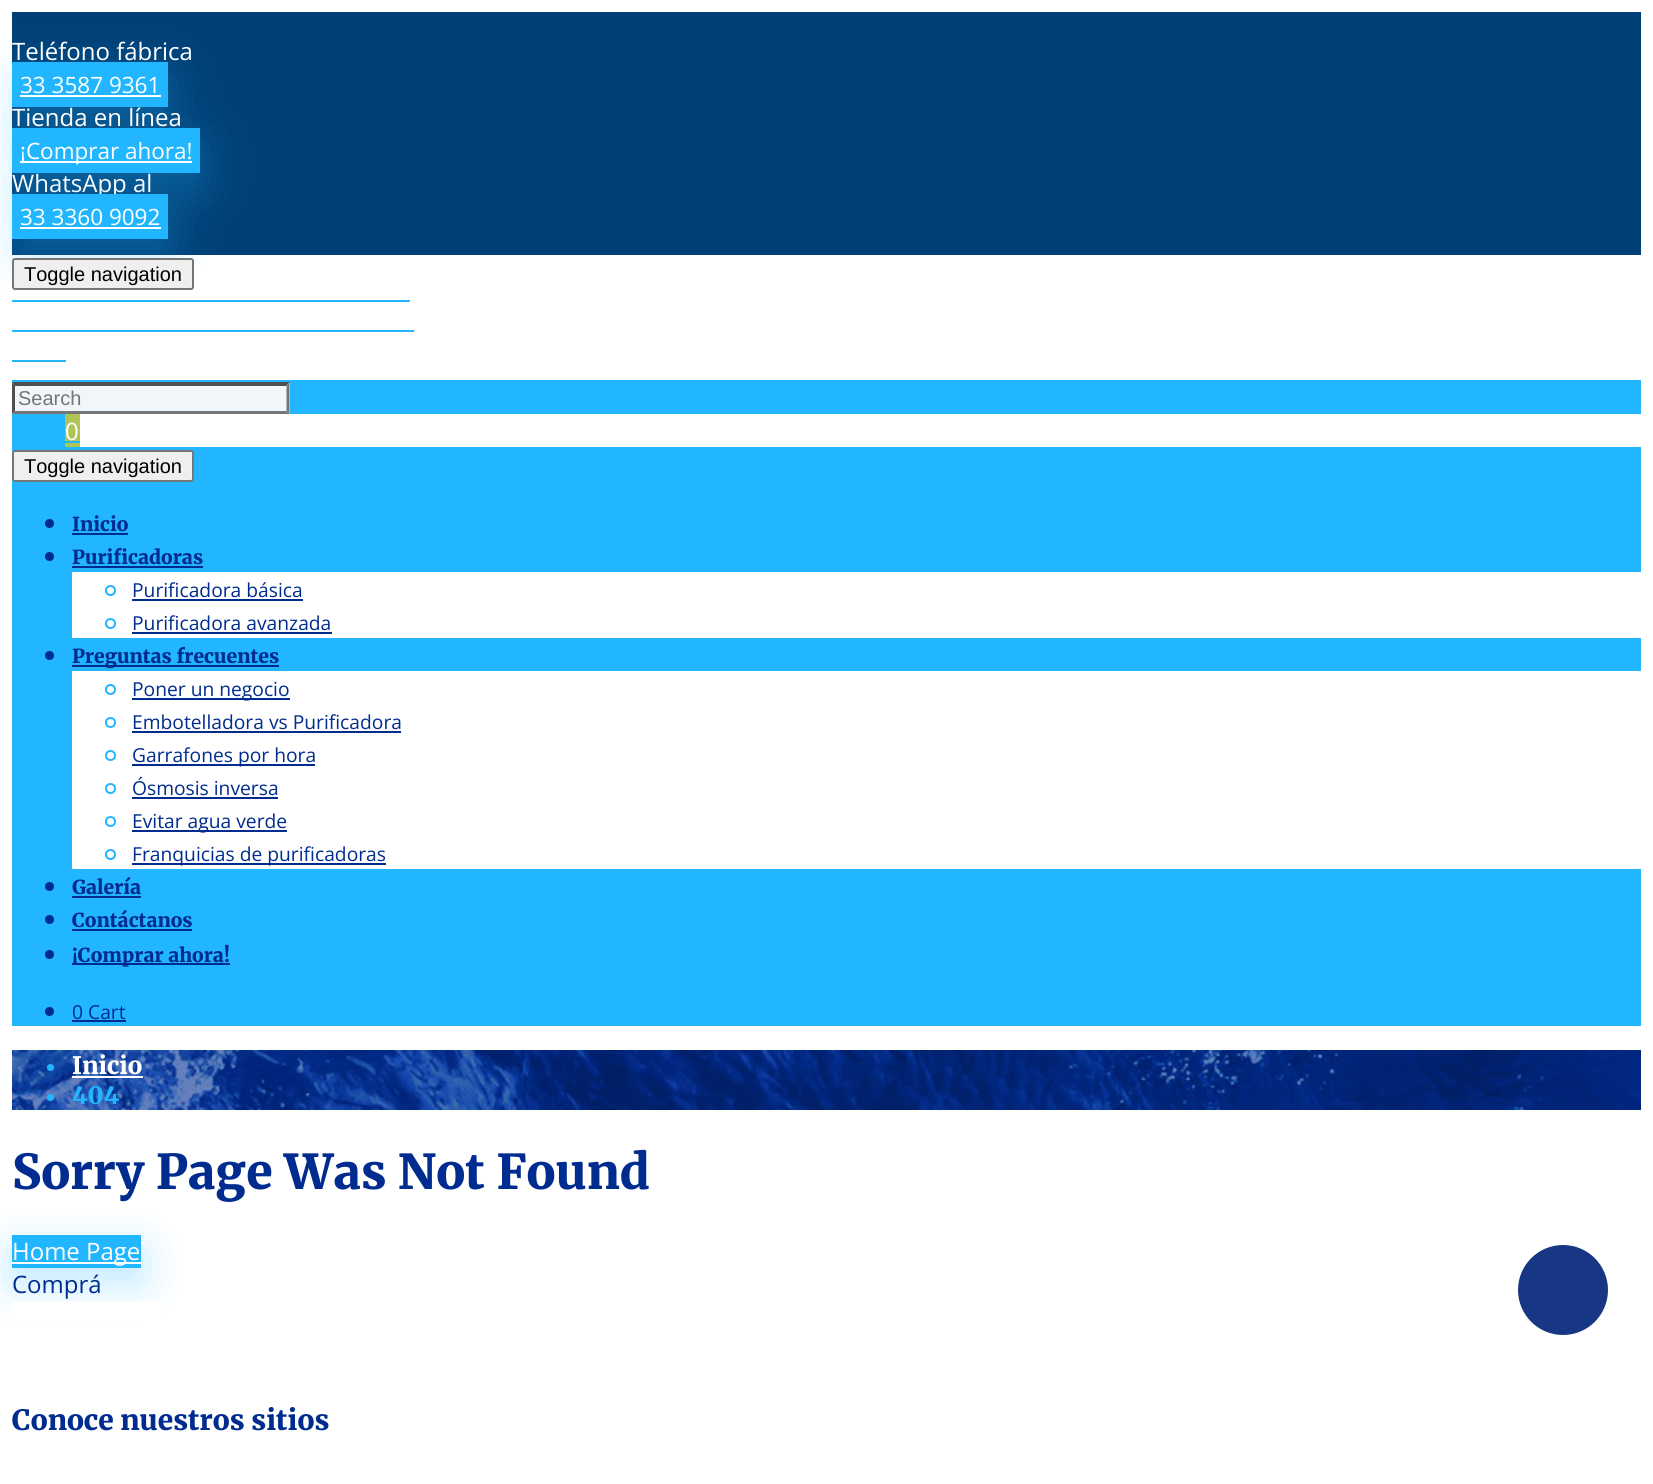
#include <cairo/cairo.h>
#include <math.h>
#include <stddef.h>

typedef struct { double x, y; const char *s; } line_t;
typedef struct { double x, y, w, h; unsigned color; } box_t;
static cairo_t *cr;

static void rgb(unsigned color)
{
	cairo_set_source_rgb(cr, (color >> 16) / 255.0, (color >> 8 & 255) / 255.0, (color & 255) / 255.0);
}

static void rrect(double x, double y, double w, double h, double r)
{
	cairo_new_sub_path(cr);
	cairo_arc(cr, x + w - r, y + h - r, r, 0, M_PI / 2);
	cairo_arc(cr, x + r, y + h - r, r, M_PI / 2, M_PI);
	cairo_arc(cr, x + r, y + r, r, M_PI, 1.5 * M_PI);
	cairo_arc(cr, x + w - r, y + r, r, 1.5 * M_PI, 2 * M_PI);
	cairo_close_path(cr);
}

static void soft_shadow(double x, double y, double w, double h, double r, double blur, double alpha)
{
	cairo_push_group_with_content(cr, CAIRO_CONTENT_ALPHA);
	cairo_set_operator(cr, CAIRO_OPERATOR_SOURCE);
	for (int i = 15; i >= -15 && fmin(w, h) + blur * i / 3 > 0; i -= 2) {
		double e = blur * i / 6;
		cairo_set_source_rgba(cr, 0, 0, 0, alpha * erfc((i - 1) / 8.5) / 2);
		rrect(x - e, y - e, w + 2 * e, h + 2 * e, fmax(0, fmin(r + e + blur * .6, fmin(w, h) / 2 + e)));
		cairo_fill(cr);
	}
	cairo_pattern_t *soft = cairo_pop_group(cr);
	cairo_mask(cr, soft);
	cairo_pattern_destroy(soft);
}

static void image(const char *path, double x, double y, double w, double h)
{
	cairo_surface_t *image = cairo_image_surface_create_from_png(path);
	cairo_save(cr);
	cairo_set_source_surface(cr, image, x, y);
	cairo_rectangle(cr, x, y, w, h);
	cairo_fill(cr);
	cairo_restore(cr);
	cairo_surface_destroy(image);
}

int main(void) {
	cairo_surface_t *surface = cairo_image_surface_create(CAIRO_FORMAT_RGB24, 1653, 1484);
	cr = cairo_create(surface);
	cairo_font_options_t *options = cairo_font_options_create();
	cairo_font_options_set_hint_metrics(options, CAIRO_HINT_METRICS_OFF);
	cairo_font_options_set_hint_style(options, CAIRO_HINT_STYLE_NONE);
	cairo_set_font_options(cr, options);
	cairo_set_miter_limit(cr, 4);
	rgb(0xffffff);
	cairo_paint(cr);
	rgb(0x004077);
	cairo_rectangle(cr, 12, 12, 1629, 243);
	cairo_fill(cr);
	rgb(0x21b6ff);
	cairo_rectangle(cr, 12, 62, 8, 45);
	cairo_fill(cr);
	rgb(0x21b6ff);
	soft_shadow(20, 77, 148, 45, 0, 22.5, 0.3);
	{
		static const box_t items[] = {
			{20, 62, 148, 45, 0x21b6ff},
			{20, 95, 141, 2, 0xffffff},
			{12, 128, 8, 45, 0x21b6ff},
		};
		for (size_t i = 0; i < sizeof items / sizeof *items; i++) {
			rgb(items[i].color);
			cairo_rectangle(cr, items[i].x, items[i].y, items[i].w, items[i].h);
			cairo_fill(cr);
		}
	}
	rgb(0x21b6ff);
	soft_shadow(20, 143, 180, 45, 0, 22.5, 0.3);
	{
		static const box_t items[] = {
			{20, 128, 180, 45, 0x21b6ff},
			{20, 161, 172, 2, 0xffffff},
			{12, 330, 402, 2, 0x21b6ff},
			{12, 360, 54, 2, 0x21b6ff},
			{12, 380, 1629, 34, 0x21b6ff},
			{12, 383, 278, 31, 0xf1f6fb},
		};
		for (size_t i = 0; i < sizeof items / sizeof *items; i++) {
			rgb(items[i].color);
			cairo_rectangle(cr, items[i].x, items[i].y, items[i].w, items[i].h);
			cairo_fill(cr);
		}
	}
	rgb(0x4f4f4f);
	cairo_new_path(cr);
	cairo_move_to(cr, 12, 382);
	cairo_line_to(cr, 290, 382);
	cairo_line_to(cr, 286, 386);
	cairo_line_to(cr, 15, 386);
	cairo_close_path(cr);
	cairo_fill(cr);
	rgb(0x767676);
	cairo_new_path(cr);
	cairo_move_to(cr, 289.5, 382.5);
	cairo_line_to(cr, 289.5, 414);
	cairo_line_to(cr, 286.5, 411);
	cairo_line_to(cr, 286.5, 385.5);
	cairo_close_path(cr);
	cairo_fill(cr);
	cairo_new_path(cr);
	cairo_move_to(cr, 290, 414);
	cairo_line_to(cr, 12, 414);
	cairo_line_to(cr, 15, 411);
	cairo_line_to(cr, 286, 411);
	cairo_close_path(cr);
	cairo_fill(cr);
	rgb(0x4f4f4f);
	cairo_new_path(cr);
	cairo_move_to(cr, 12, 414);
	cairo_line_to(cr, 12, 382.5);
	cairo_line_to(cr, 15, 385.5);
	cairo_line_to(cr, 15, 411);
	cairo_close_path(cr);
	cairo_fill(cr);
	{
		static const box_t items[] = {
			{12, 414, 53, 33, 0x21b6ff},
			{65, 414, 15, 33, 0xaec556},
			{65, 441, 15, 2, 0x21b6ff},
			{12, 447, 1629, 579, 0x21b6ff},
		};
		for (size_t i = 0; i < sizeof items / sizeof *items; i++) {
			rgb(items[i].color);
			cairo_rectangle(cr, items[i].x, items[i].y, items[i].w, items[i].h);
			cairo_fill(cr);
		}
	}
	rgb(0xefefef);
	rrect(13, 451, 180, 30, 2);
	cairo_fill_preserve(cr);
	rgb(0x767676);
	cairo_stroke(cr);
	rgb(0x002c8f);
	cairo_arc(cr, 49.5, 523.5, 4.5, 0, 2 * M_PI);
	cairo_fill(cr);
	cairo_rectangle(cr, 72, 533, 56, 2);
	cairo_fill(cr);
	cairo_arc(cr, 49.5, 556.5, 4.5, 0, 2 * M_PI);
	cairo_fill(cr);
	cairo_rectangle(cr, 72, 566, 131, 2);
	cairo_fill(cr);
	rgb(0xffffff);
	cairo_rectangle(cr, 72, 572, 1569, 66);
	cairo_fill(cr);
	cairo_arc(cr, 110.5, 590.5, 4.5, 0, 2 * M_PI);
	rgb(0x21b6ff);
	cairo_stroke(cr);
	rgb(0x002c8f);
	cairo_rectangle(cr, 132, 599, 171, 2);
	cairo_fill(cr);
	cairo_arc(cr, 110.5, 623.5, 4.5, 0, 2 * M_PI);
	rgb(0x21b6ff);
	cairo_stroke(cr);
	rgb(0x002c8f);
	cairo_rectangle(cr, 132, 632, 200, 2);
	cairo_fill(cr);
	cairo_arc(cr, 49.5, 655.5, 4.5, 0, 2 * M_PI);
	cairo_fill(cr);
	cairo_rectangle(cr, 72, 665, 207, 2);
	cairo_fill(cr);
	rgb(0xffffff);
	cairo_rectangle(cr, 72, 671, 1569, 198);
	cairo_fill(cr);
	cairo_arc(cr, 110.5, 689.5, 4.5, 0, 2 * M_PI);
	rgb(0x21b6ff);
	cairo_stroke(cr);
	rgb(0x002c8f);
	cairo_rectangle(cr, 132, 698, 158, 2);
	cairo_fill(cr);
	cairo_arc(cr, 110.5, 722.5, 4.5, 0, 2 * M_PI);
	rgb(0x21b6ff);
	cairo_stroke(cr);
	rgb(0x002c8f);
	cairo_rectangle(cr, 132, 731, 269, 2);
	cairo_fill(cr);
	cairo_arc(cr, 110.5, 755.5, 4.5, 0, 2 * M_PI);
	rgb(0x21b6ff);
	cairo_stroke(cr);
	rgb(0x002c8f);
	cairo_rectangle(cr, 132, 764, 183, 2);
	cairo_fill(cr);
	cairo_arc(cr, 110.5, 788.5, 4.5, 0, 2 * M_PI);
	rgb(0x21b6ff);
	cairo_stroke(cr);
	rgb(0x002c8f);
	cairo_rectangle(cr, 132, 797, 146, 2);
	cairo_fill(cr);
	cairo_arc(cr, 110.5, 821.5, 4.5, 0, 2 * M_PI);
	rgb(0x21b6ff);
	cairo_stroke(cr);
	rgb(0x002c8f);
	cairo_rectangle(cr, 132, 830, 155, 2);
	cairo_fill(cr);
	cairo_arc(cr, 110.5, 854.5, 4.5, 0, 2 * M_PI);
	rgb(0x21b6ff);
	cairo_stroke(cr);
	rgb(0x002c8f);
	cairo_rectangle(cr, 132, 863, 254, 2);
	cairo_fill(cr);
	cairo_arc(cr, 49.5, 886.5, 4.5, 0, 2 * M_PI);
	cairo_fill(cr);
	cairo_rectangle(cr, 72, 896, 69, 2);
	cairo_fill(cr);
	cairo_arc(cr, 49.5, 919.5, 4.5, 0, 2 * M_PI);
	cairo_fill(cr);
	cairo_rectangle(cr, 72, 929, 120, 2);
	cairo_fill(cr);
	cairo_arc(cr, 49.5, 954.5, 4.5, 0, 2 * M_PI);
	cairo_fill(cr);
	cairo_rectangle(cr, 72, 963, 158, 2);
	cairo_fill(cr);
	cairo_arc(cr, 49.5, 1011.5, 4.5, 0, 2 * M_PI);
	cairo_fill(cr);
	cairo_rectangle(cr, 72, 1020, 54, 2);
	cairo_fill(cr);
	image("img/1.png", 12, 1050, 1629, 60);
	rgb(0x21b6ff);
	cairo_arc(cr, 50.5, 1067.5, 3.5, 0, 2 * M_PI);
	cairo_fill(cr);
	rgb(0xffffff);
	cairo_rectangle(cr, 72, 1076, 71, 2);
	cairo_fill(cr);
	rgb(0x21b6ff);
	cairo_arc(cr, 50.5, 1097.5, 3.5, 0, 2 * M_PI);
	cairo_fill(cr);
	rgb(0x21b6ff);
	soft_shadow(12, 1250, 129, 33, 0, 22.5, 0.3);
	rgb(0x21b6ff);
	cairo_rectangle(cr, 12, 1235, 129, 33);
	cairo_fill(cr);
	rgb(0xffffff);
	cairo_rectangle(cr, 12, 1262, 129, 2);
	cairo_fill(cr);
	rgb(0x173683);
	cairo_arc(cr, 1563, 1290, 45, 0, 2 * M_PI);
	cairo_fill(cr);
	rgb(0xffffff);
	cairo_rectangle(cr, 12, 1301, 148, 22);
	cairo_fill(cr);
	cairo_select_font_face(cr, "Open Sans", CAIRO_FONT_SLANT_NORMAL, CAIRO_FONT_WEIGHT_NORMAL);
	cairo_set_font_size(cr, 24);
	cairo_move_to(cr, 12, 60);
	cairo_show_text(cr, "Teléfono fábrica");
	cairo_set_font_size(cr, 22.5);
	cairo_move_to(cr, 20, 93);
	cairo_show_text(cr, "33 3587 9361");
	cairo_set_font_size(cr, 24);
	cairo_move_to(cr, 12, 126);
	cairo_show_text(cr, "Tienda en línea");
	cairo_set_font_size(cr, 22.5);
	cairo_move_to(cr, 20, 159);
	cairo_show_text(cr, "¡Comprar ahora!");
	cairo_set_font_size(cr, 24);
	cairo_move_to(cr, 12, 192);
	cairo_show_text(cr, "WhatsApp al");
	rgb(0x21b6ff);
	cairo_rectangle(cr, 12, 194, 8, 45);
	cairo_fill(cr);
	rgb(0x21b6ff);
	soft_shadow(20, 209, 148, 45, 0, 22.5, 0.3);
	rgb(0x21b6ff);
	cairo_rectangle(cr, 20, 194, 148, 45);
	cairo_fill(cr);
	cairo_set_font_size(cr, 22.5);
	rgb(0xffffff);
	cairo_move_to(cr, 20, 225);
	cairo_show_text(cr, "33 3360 9092");
	cairo_rectangle(cr, 20, 227, 141, 2);
	cairo_fill(cr);
	rgb(0xefefef);
	rrect(13, 259, 180, 30, 2);
	cairo_fill_preserve(cr);
	rgb(0x767676);
	cairo_stroke(cr);
	cairo_select_font_face(cr, "Liberation Sans", CAIRO_FONT_SLANT_NORMAL, CAIRO_FONT_WEIGHT_NORMAL);
	cairo_set_font_size(cr, 20);
	rgb(0x000000);
	cairo_move_to(cr, 24, 281);
	cairo_show_text(cr, "Toggle navigation");
	rgb(0x21b6ff);
	cairo_rectangle(cr, 12, 300, 398, 2);
	cairo_fill(cr);
	rgb(0x757575);
	cairo_move_to(cr, 18, 405);
	cairo_show_text(cr, "Search");
	cairo_select_font_face(cr, "Open Sans", CAIRO_FONT_SLANT_NORMAL, CAIRO_FONT_WEIGHT_NORMAL);
	cairo_set_font_size(cr, 24);
	rgb(0xffffff);
	cairo_move_to(cr, 65, 440);
	cairo_show_text(cr, "0");
	cairo_select_font_face(cr, "Liberation Sans", CAIRO_FONT_SLANT_NORMAL, CAIRO_FONT_WEIGHT_NORMAL);
	cairo_set_font_size(cr, 20);
	rgb(0x000000);
	cairo_move_to(cr, 24, 473);
	cairo_show_text(cr, "Toggle navigation");
	cairo_select_font_face(cr, "Merriweather Black", CAIRO_FONT_SLANT_NORMAL, CAIRO_FONT_WEIGHT_NORMAL);
	cairo_set_font_size(cr, 19.25);
	rgb(0x002c8f);
	cairo_move_to(cr, 72, 531);
	cairo_show_text(cr, "Inicio");
	cairo_move_to(cr, 72, 564);
	cairo_show_text(cr, "Purificadoras");
	cairo_select_font_face(cr, "Open Sans", CAIRO_FONT_SLANT_NORMAL, CAIRO_FONT_WEIGHT_NORMAL);
	cairo_move_to(cr, 132, 597);
	cairo_show_text(cr, "Purificadora básica");
	cairo_move_to(cr, 132, 630);
	cairo_show_text(cr, "Purificadora avanzada");
	cairo_select_font_face(cr, "Merriweather Black", CAIRO_FONT_SLANT_NORMAL, CAIRO_FONT_WEIGHT_NORMAL);
	cairo_move_to(cr, 72, 663);
	cairo_show_text(cr, "Preguntas frecuentes");
	cairo_select_font_face(cr, "Open Sans", CAIRO_FONT_SLANT_NORMAL, CAIRO_FONT_WEIGHT_NORMAL);
	{
		static const line_t items[] = {
			{132, 696, "Poner un negocio"},
			{132, 729, "Embotelladora vs Purificadora"},
			{132, 762, "Garrafones por hora"},
			{132, 795, "Ósmosis inversa"},
			{132, 828, "Evitar agua verde"},
			{132, 861, "Franquicias de purificadoras"},
		};
		for (size_t i = 0; i < sizeof items / sizeof *items; i++) {
			cairo_move_to(cr, items[i].x, items[i].y);
			cairo_show_text(cr, items[i].s);
		}
	}
	cairo_select_font_face(cr, "Merriweather Black", CAIRO_FONT_SLANT_NORMAL, CAIRO_FONT_WEIGHT_NORMAL);
	{
		static const line_t items[] = {
			{72, 894, "Galería"},
			{72, 927, "Contáctanos"},
			{72, 962, "¡Comprar ahora!"},
		};
		for (size_t i = 0; i < sizeof items / sizeof *items; i++) {
			cairo_move_to(cr, items[i].x, items[i].y);
			cairo_show_text(cr, items[i].s);
		}
	}
	cairo_select_font_face(cr, "Open Sans", CAIRO_FONT_SLANT_NORMAL, CAIRO_FONT_WEIGHT_NORMAL);
	cairo_move_to(cr, 72, 1019);
	cairo_show_text(cr, "0 Cart");
	cairo_select_font_face(cr, "Merriweather Black", CAIRO_FONT_SLANT_NORMAL, CAIRO_FONT_WEIGHT_NORMAL);
	cairo_set_font_size(cr, 24);
	rgb(0xffffff);
	cairo_move_to(cr, 72, 1074);
	cairo_show_text(cr, "Inicio");
	rgb(0x21b6ff);
	cairo_move_to(cr, 72, 1104);
	cairo_show_text(cr, "404");
	cairo_set_font_size(cr, 48);
	rgb(0x002c8f);
	cairo_move_to(cr, 12, 1189);
	cairo_show_text(cr, "Sorry Page Was Not Found");
	cairo_select_font_face(cr, "Open Sans", CAIRO_FONT_SLANT_NORMAL, CAIRO_FONT_WEIGHT_NORMAL);
	cairo_set_font_size(cr, 24);
	rgb(0xffffff);
	cairo_move_to(cr, 12, 1260);
	cairo_show_text(cr, "Home Page");
	rgb(0x002c8f);
	cairo_move_to(cr, 12, 1293);
	cairo_show_text(cr, "Comprá");
	cairo_select_font_face(cr, "Merriweather Black", CAIRO_FONT_SLANT_NORMAL, CAIRO_FONT_WEIGHT_NORMAL);
	cairo_set_font_size(cr, 28);
	cairo_move_to(cr, 12, 1430);
	cairo_show_text(cr, "Conoce nuestros sitios");
	cairo_surface_write_to_png(surface, "page.png");
	cairo_font_options_destroy(options);
	cairo_destroy(cr);
	cairo_surface_destroy(surface);
	return 0;
}
